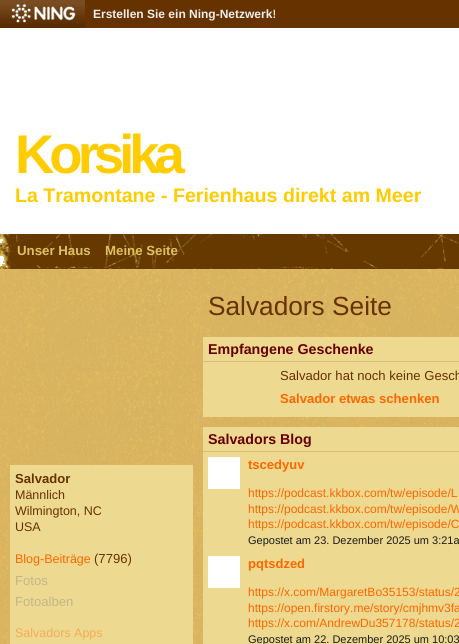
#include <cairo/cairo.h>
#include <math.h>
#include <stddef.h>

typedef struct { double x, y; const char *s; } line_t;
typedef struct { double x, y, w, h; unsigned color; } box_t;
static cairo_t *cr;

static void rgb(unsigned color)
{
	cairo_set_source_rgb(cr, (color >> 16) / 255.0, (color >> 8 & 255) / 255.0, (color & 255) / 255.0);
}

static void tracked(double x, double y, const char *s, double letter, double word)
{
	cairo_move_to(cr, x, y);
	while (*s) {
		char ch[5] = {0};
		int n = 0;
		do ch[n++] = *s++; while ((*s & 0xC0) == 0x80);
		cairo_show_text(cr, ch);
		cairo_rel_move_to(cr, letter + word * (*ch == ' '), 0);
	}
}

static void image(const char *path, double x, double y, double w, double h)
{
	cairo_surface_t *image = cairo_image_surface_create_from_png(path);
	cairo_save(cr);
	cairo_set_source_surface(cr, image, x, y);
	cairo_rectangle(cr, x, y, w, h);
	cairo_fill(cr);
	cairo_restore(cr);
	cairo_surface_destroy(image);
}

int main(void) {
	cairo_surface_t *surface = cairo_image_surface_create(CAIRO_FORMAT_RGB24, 459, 644);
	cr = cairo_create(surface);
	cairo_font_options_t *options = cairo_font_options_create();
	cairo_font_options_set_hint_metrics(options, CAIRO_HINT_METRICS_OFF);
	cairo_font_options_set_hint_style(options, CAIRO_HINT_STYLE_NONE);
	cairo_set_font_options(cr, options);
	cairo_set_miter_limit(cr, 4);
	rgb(0xffffff);
	cairo_paint(cr);
	rgb(0x663300);
	cairo_rectangle(cr, 0, 0, 459, 28);
	cairo_fill(cr);
	image("img/1.png", 0, 0, 85, 28);
	image("img/2.png", 11, 3, 65, 20);
	image("img/3.png", 0, 234, 459, 35);
	image("img/4.png", 0, 269, 459, 375);
	{
		static const box_t items[] = {
			{10, 465, 183, 179, 0xeed990},
			{203, 337, 256, 24, 0xeed990},
			{203, 361, 256, 1, 0xd6be77},
			{203, 362, 256, 55, 0xeed990},
			{203, 427, 256, 24, 0xeed990},
			{203, 451, 256, 1, 0xd6be77},
			{203, 452, 256, 192, 0xeed990},
			{208, 457, 32, 32, 0xffffff},
			{208, 556, 32, 32, 0xffffff},
		};
		for (size_t i = 0; i < sizeof items / sizeof *items; i++) {
			rgb(items[i].color);
			cairo_rectangle(cr, items[i].x, items[i].y, items[i].w, items[i].h);
			cairo_fill(cr);
		}
	}
	cairo_select_font_face(cr, "Liberation Sans", CAIRO_FONT_SLANT_NORMAL, CAIRO_FONT_WEIGHT_BOLD);
	cairo_set_font_size(cr, 12);
	rgb(0xeeeeee);
	cairo_move_to(cr, 93, 18);
	cairo_show_text(cr, "Erstellen Sie ein Ning-Netzwerk!");
	cairo_set_font_size(cr, 54.5);
	rgb(0xffcc00);
	tracked(15, 173, "Korsika", -5, 0);
	cairo_set_font_size(cr, 19.6);
	cairo_move_to(cr, 15, 202);
	cairo_show_text(cr, "La Tramontane - Ferienhaus direkt am Meer");
	cairo_set_font_size(cr, 13.25);
	rgb(0xe1bf60);
	cairo_move_to(cr, 17, 255);
	cairo_show_text(cr, "Unser Haus");
	cairo_move_to(cr, 105, 255);
	cairo_show_text(cr, "Meine Seite");
	cairo_set_font_size(cr, 13.1);
	rgb(0x663300);
	cairo_move_to(cr, 15, 483);
	cairo_show_text(cr, "Salvador");
	cairo_select_font_face(cr, "Liberation Sans", CAIRO_FONT_SLANT_NORMAL, CAIRO_FONT_WEIGHT_NORMAL);
	cairo_set_font_size(cr, 12.5);
	{
		static const line_t items[] = {
			{15, 499, "Männlich"},
			{15, 515, "Wilmington, NC"},
			{15, 531, "USA"},
		};
		for (size_t i = 0; i < sizeof items / sizeof *items; i++) {
			cairo_move_to(cr, items[i].x, items[i].y);
			cairo_show_text(cr, items[i].s);
		}
	}
	rgb(0xff6600);
	cairo_move_to(cr, 15, 563);
	cairo_show_text(cr, "Blog-Beiträge");
	cairo_set_font_size(cr, 13.1);
	rgb(0x663300);
	cairo_move_to(cr, 94, 563);
	cairo_show_text(cr, "(7796)");
	rgb(0xc2b589);
	cairo_move_to(cr, 15, 585);
	cairo_show_text(cr, "Fotos");
	cairo_move_to(cr, 15, 606);
	cairo_show_text(cr, "Fotoalben");
	cairo_set_font_size(cr, 12.5);
	rgb(0xf5ab56);
	cairo_move_to(cr, 15, 637);
	cairo_show_text(cr, "Salvadors Apps");
	cairo_set_font_size(cr, 26.25);
	rgb(0x663300);
	cairo_move_to(cr, 208, 315);
	cairo_show_text(cr, "Salvadors Seite");
	cairo_select_font_face(cr, "Liberation Sans", CAIRO_FONT_SLANT_NORMAL, CAIRO_FONT_WEIGHT_BOLD);
	cairo_set_font_size(cr, 14.25);
	rgb(0x660000);
	cairo_move_to(cr, 208, 354);
	cairo_show_text(cr, "Empfangene Geschenke");
	cairo_select_font_face(cr, "Liberation Sans", CAIRO_FONT_SLANT_NORMAL, CAIRO_FONT_WEIGHT_NORMAL);
	cairo_set_font_size(cr, 13.1);
	rgb(0x663300);
	cairo_move_to(cr, 280, 380);
	cairo_show_text(cr, "Salvador hat noch keine Gesch");
	cairo_select_font_face(cr, "Liberation Sans", CAIRO_FONT_SLANT_NORMAL, CAIRO_FONT_WEIGHT_BOLD);
	rgb(0xff6600);
	cairo_move_to(cr, 280, 403);
	cairo_show_text(cr, "Salvador etwas schenken");
	cairo_set_font_size(cr, 14.25);
	rgb(0x660000);
	cairo_move_to(cr, 208, 444);
	cairo_show_text(cr, "Salvadors Blog");
	cairo_set_font_size(cr, 13);
	rgb(0xff6600);
	cairo_move_to(cr, 248, 469);
	cairo_show_text(cr, "tscedyuv");
	cairo_select_font_face(cr, "Liberation Sans", CAIRO_FONT_SLANT_NORMAL, CAIRO_FONT_WEIGHT_NORMAL);
	cairo_set_font_size(cr, 12);
	{
		static const line_t items[] = {
			{248, 497, "https://podcast.kkbox.com/tw/episode/L"},
			{248, 513, "https://podcast.kkbox.com/tw/episode/W"},
			{248, 528, "https://podcast.kkbox.com/tw/episode/C"},
		};
		for (size_t i = 0; i < sizeof items / sizeof *items; i++) {
			cairo_move_to(cr, items[i].x, items[i].y);
			cairo_show_text(cr, items[i].s);
		}
	}
	cairo_set_font_size(cr, 11);
	rgb(0x1a1a1a);
	cairo_move_to(cr, 248, 544);
	cairo_show_text(cr, "Gepostet am 23. Dezember 2025 um 3:21a");
	cairo_select_font_face(cr, "Liberation Sans", CAIRO_FONT_SLANT_NORMAL, CAIRO_FONT_WEIGHT_BOLD);
	cairo_set_font_size(cr, 13);
	rgb(0xff6600);
	cairo_move_to(cr, 248, 568);
	cairo_show_text(cr, "pqtsdzed");
	cairo_select_font_face(cr, "Liberation Sans", CAIRO_FONT_SLANT_NORMAL, CAIRO_FONT_WEIGHT_NORMAL);
	cairo_set_font_size(cr, 12);
	{
		static const line_t items[] = {
			{248, 596, "https://x.com/MargaretBo35153/status/2"},
			{248, 612, "https://open.firstory.me/story/cmjhmv3fa"},
			{248, 627, "https://x.com/AndrewDu357178/status/2"},
		};
		for (size_t i = 0; i < sizeof items / sizeof *items; i++) {
			cairo_move_to(cr, items[i].x, items[i].y);
			cairo_show_text(cr, items[i].s);
		}
	}
	cairo_set_font_size(cr, 11);
	rgb(0x1a1a1a);
	cairo_move_to(cr, 248, 643);
	cairo_show_text(cr, "Gepostet am 22. Dezember 2025 um 10:03");
	cairo_surface_write_to_png(surface, "page.png");
	cairo_font_options_destroy(options);
	cairo_destroy(cr);
	cairo_surface_destroy(surface);
	return 0;
}
